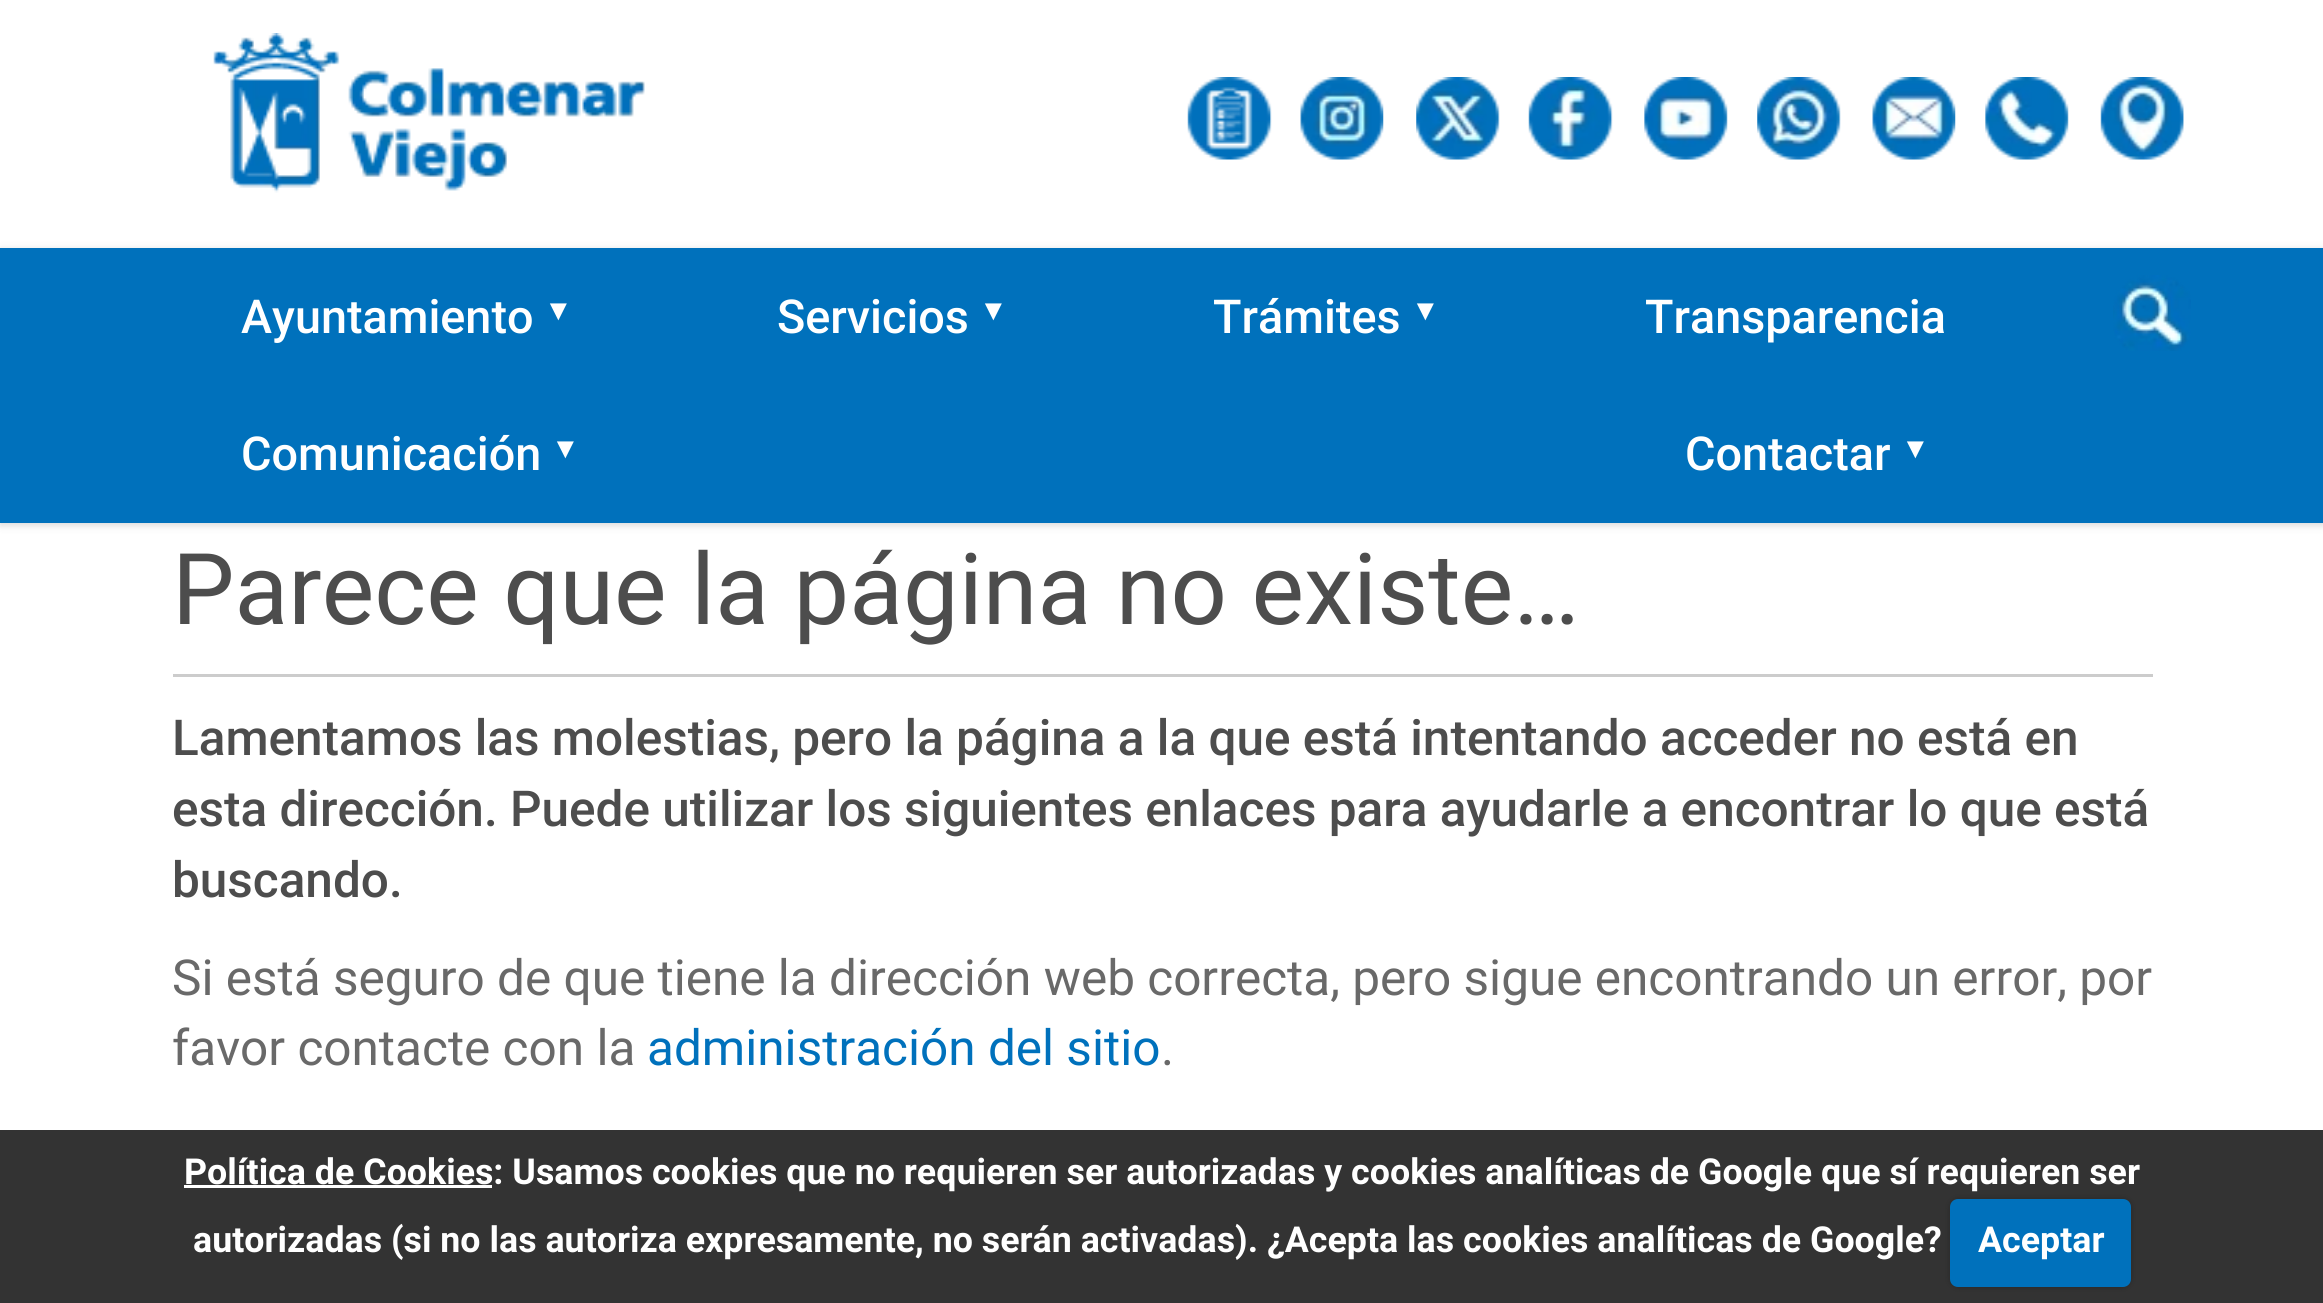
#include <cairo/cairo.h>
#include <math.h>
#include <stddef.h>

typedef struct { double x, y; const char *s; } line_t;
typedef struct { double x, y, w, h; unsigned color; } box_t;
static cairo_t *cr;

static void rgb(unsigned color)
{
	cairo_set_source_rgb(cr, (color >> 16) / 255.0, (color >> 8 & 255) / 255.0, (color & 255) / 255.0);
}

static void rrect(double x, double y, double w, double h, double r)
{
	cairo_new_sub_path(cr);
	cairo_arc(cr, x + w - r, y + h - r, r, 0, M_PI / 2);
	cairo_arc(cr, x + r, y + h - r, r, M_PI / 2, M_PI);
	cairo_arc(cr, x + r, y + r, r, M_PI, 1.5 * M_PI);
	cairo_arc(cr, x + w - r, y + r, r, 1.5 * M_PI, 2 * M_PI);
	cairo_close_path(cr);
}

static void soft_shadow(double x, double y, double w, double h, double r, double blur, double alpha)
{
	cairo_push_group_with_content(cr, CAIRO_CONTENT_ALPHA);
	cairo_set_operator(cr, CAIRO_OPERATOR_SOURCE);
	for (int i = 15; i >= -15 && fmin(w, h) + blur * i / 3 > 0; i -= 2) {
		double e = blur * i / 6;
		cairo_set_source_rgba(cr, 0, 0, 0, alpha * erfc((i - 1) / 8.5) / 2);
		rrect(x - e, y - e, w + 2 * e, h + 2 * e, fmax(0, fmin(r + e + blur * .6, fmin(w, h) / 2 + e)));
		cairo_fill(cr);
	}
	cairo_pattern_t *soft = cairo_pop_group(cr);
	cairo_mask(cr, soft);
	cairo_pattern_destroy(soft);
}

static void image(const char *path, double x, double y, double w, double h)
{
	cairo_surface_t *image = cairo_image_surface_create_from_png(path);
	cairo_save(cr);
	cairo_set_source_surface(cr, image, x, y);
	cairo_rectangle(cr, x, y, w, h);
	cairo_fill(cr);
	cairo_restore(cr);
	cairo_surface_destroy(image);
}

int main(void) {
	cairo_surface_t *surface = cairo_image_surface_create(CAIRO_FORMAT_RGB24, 2323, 1303);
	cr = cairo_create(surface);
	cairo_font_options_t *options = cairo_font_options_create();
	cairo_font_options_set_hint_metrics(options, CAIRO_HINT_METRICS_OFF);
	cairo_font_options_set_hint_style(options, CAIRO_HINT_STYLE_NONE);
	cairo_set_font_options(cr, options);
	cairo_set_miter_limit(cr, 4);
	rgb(0xffffff);
	cairo_paint(cr);
	rgb(0x000000);
	soft_shadow(0, 250, 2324, 275, 0, 4, 0.17);
	rgb(0x0071bc);
	cairo_rectangle(cr, 0, 248, 2323, 275);
	cairo_fill(cr);
	image("img/1.png", 213, 33, 432, 160);
	image("img/2.png", 1187, 77, 85, 83);
	image("img/3.png", 1300, 77, 84, 83);
	image("img/4.png", 1416, 77, 84, 83);
	image("img/5.png", 1528, 77, 85, 83);
	image("img/6.png", 1644, 77, 84, 83);
	image("img/7.png", 1757, 77, 84, 83);
	image("img/8.png", 1872, 77, 84, 83);
	image("img/9.png", 1985, 77, 84, 83);
	image("img/10.png", 2100, 77, 84, 83);
	image("img/11.png", 2113, 275, 78, 76);
	{
		static const box_t items[] = {
			{173, 674, 1980, 3, 0xcccccc},
			{0, 1130, 2323, 173, 0x333333},
			{184, 1185, 308, 3, 0xffffff},
		};
		for (size_t i = 0; i < sizeof items / sizeof *items; i++) {
			rgb(items[i].color);
			cairo_rectangle(cr, items[i].x, items[i].y, items[i].w, items[i].h);
			cairo_fill(cr);
		}
	}
	rgb(0x000000);
	soft_shadow(1950, 1199, 181, 88, 8, 3, 0.25);
	rgb(0x0071bc);
	rrect(1950, 1199, 181, 88, 8);
	cairo_fill(cr);
	cairo_select_font_face(cr, "Roboto Medium", CAIRO_FONT_SLANT_NORMAL, CAIRO_FONT_WEIGHT_NORMAL);
	cairo_set_font_size(cr, 46.75);
	rgb(0xffffff);
	cairo_move_to(cr, 241, 333);
	cairo_show_text(cr, "Ayuntamiento");
	cairo_select_font_face(cr, "Liberation Sans", CAIRO_FONT_SLANT_NORMAL, CAIRO_FONT_WEIGHT_BOLD);
	cairo_set_font_size(cr, 29);
	cairo_move_to(cr, 544, 320);
	cairo_show_text(cr, "▼");
	cairo_select_font_face(cr, "Roboto Medium", CAIRO_FONT_SLANT_NORMAL, CAIRO_FONT_WEIGHT_NORMAL);
	cairo_set_font_size(cr, 46.75);
	cairo_move_to(cr, 777, 333);
	cairo_show_text(cr, "Servicios");
	cairo_select_font_face(cr, "Liberation Sans", CAIRO_FONT_SLANT_NORMAL, CAIRO_FONT_WEIGHT_BOLD);
	cairo_set_font_size(cr, 29);
	cairo_move_to(cr, 979, 320);
	cairo_show_text(cr, "▼");
	cairo_select_font_face(cr, "Roboto Medium", CAIRO_FONT_SLANT_NORMAL, CAIRO_FONT_WEIGHT_NORMAL);
	cairo_set_font_size(cr, 46.75);
	cairo_move_to(cr, 1213, 333);
	cairo_show_text(cr, "Trámites");
	cairo_select_font_face(cr, "Liberation Sans", CAIRO_FONT_SLANT_NORMAL, CAIRO_FONT_WEIGHT_BOLD);
	cairo_set_font_size(cr, 29);
	cairo_move_to(cr, 1411, 320);
	cairo_show_text(cr, "▼");
	cairo_select_font_face(cr, "Roboto Medium", CAIRO_FONT_SLANT_NORMAL, CAIRO_FONT_WEIGHT_NORMAL);
	cairo_set_font_size(cr, 46.75);
	cairo_move_to(cr, 1645, 333);
	cairo_show_text(cr, "Transparencia");
	cairo_move_to(cr, 241, 470);
	cairo_show_text(cr, "Comunicación");
	cairo_select_font_face(cr, "Liberation Sans", CAIRO_FONT_SLANT_NORMAL, CAIRO_FONT_WEIGHT_BOLD);
	cairo_set_font_size(cr, 29);
	cairo_move_to(cr, 551, 458);
	cairo_show_text(cr, "▼");
	cairo_select_font_face(cr, "Roboto Medium", CAIRO_FONT_SLANT_NORMAL, CAIRO_FONT_WEIGHT_NORMAL);
	cairo_set_font_size(cr, 46.75);
	cairo_move_to(cr, 1685, 470);
	cairo_show_text(cr, "Contactar");
	cairo_select_font_face(cr, "Liberation Sans", CAIRO_FONT_SLANT_NORMAL, CAIRO_FONT_WEIGHT_BOLD);
	cairo_set_font_size(cr, 29);
	cairo_move_to(cr, 1901, 458);
	cairo_show_text(cr, "▼");
	cairo_select_font_face(cr, "Roboto", CAIRO_FONT_SLANT_NORMAL, CAIRO_FONT_WEIGHT_NORMAL);
	cairo_set_font_size(cr, 99);
	rgb(0x4d4d4d);
	cairo_move_to(cr, 172, 624);
	cairo_show_text(cr, "Parece que la página no existe…");
	cairo_select_font_face(cr, "Roboto Medium", CAIRO_FONT_SLANT_NORMAL, CAIRO_FONT_WEIGHT_NORMAL);
	cairo_set_font_size(cr, 49.5);
	{
		static const line_t items[] = {
			{172, 755, "Lamentamos las molestias, pero la página a la que está intentando acceder no está en"},
			{172, 826, "esta dirección. Puede utilizar los siguientes enlaces para ayudarle a encontrar lo que está"},
			{172, 897, "buscando."},
		};
		for (size_t i = 0; i < sizeof items / sizeof *items; i++) {
			cairo_move_to(cr, items[i].x, items[i].y);
			cairo_show_text(cr, items[i].s);
		}
	}
	cairo_select_font_face(cr, "Roboto", CAIRO_FONT_SLANT_NORMAL, CAIRO_FONT_WEIGHT_NORMAL);
	rgb(0x696969);
	cairo_move_to(cr, 172, 995);
	cairo_show_text(cr, "Si está seguro de que tiene la dirección web correcta, pero sigue encontrando un error, por");
	cairo_move_to(cr, 172, 1065);
	cairo_show_text(cr, "favor contacte con la");
	rgb(0x0071bc);
	cairo_move_to(cr, 647, 1065);
	cairo_show_text(cr, "administración del sitio");
	rgb(0x696969);
	cairo_move_to(cr, 1161, 1065);
	cairo_show_text(cr, ".");
	cairo_select_font_face(cr, "Roboto", CAIRO_FONT_SLANT_NORMAL, CAIRO_FONT_WEIGHT_BOLD);
	cairo_set_font_size(cr, 35.75);
	rgb(0xffffff);
	{
		static const line_t items[] = {
			{184, 1184, "Política de Cookies: Usamos cookies que no requieren ser autorizadas y cookies analíticas de Google que sí requieren ser"},
			{193, 1252, "autorizadas (si no las autoriza expresamente, no serán activadas). ¿Acepta las cookies analíticas de Google?"},
			{1978, 1252, "Aceptar"},
		};
		for (size_t i = 0; i < sizeof items / sizeof *items; i++) {
			cairo_move_to(cr, items[i].x, items[i].y);
			cairo_show_text(cr, items[i].s);
		}
	}
	cairo_surface_write_to_png(surface, "page.png");
	cairo_font_options_destroy(options);
	cairo_destroy(cr);
	cairo_surface_destroy(surface);
	return 0;
}
